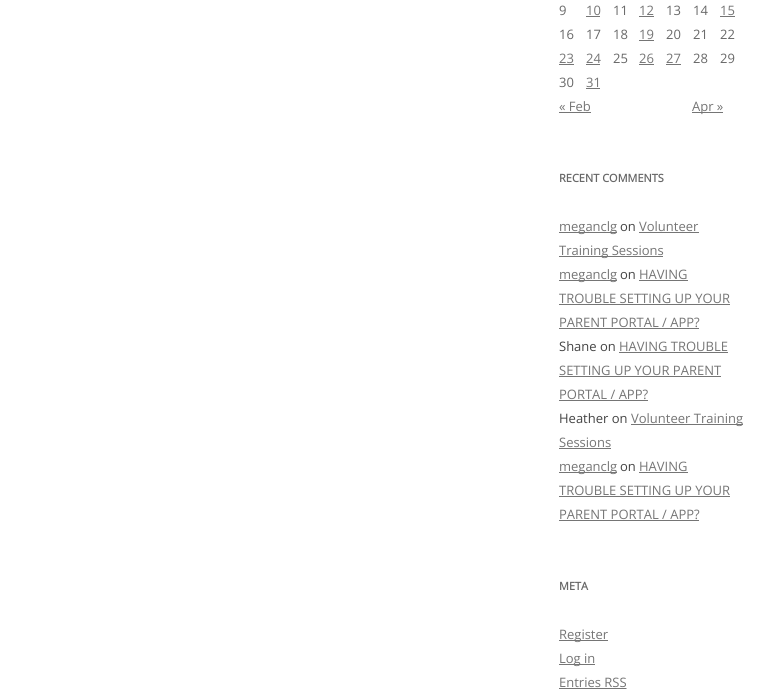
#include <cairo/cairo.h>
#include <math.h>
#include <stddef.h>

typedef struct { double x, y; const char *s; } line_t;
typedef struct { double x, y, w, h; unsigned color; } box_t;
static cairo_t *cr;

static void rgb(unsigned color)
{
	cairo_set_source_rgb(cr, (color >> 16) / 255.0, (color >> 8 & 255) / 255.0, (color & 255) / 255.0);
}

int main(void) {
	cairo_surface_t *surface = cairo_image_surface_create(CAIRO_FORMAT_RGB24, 771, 692);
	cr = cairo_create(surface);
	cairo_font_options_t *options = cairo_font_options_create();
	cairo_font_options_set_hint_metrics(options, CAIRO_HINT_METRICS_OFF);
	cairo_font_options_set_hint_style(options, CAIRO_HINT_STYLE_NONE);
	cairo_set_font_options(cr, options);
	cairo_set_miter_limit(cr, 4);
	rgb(0xffffff);
	cairo_paint(cr);
	{
		static const box_t items[] = {
			{586, 16, 14, 1, 0x757575},
			{639, 16, 15, 1, 0x757575},
			{720, 16, 15, 1, 0x757575},
			{639, 40, 15, 1, 0x757575},
			{559, 64, 15, 1, 0x757575},
			{586, 64, 14, 1, 0x757575},
			{639, 64, 15, 1, 0x757575},
			{666, 64, 15, 1, 0x757575},
			{586, 88, 14, 1, 0x757575},
			{559, 112, 32, 1, 0x757575},
			{692, 112, 31, 1, 0x757575},
			{559, 232, 58, 1, 0x757575},
			{639, 232, 60, 1, 0x757575},
			{559, 256, 104, 1, 0x757575},
			{559, 280, 58, 1, 0x757575},
			{639, 280, 49, 1, 0x757575},
			{559, 304, 171, 1, 0x757575},
			{559, 328, 140, 1, 0x757575},
			{619, 352, 109, 1, 0x757575},
			{559, 376, 162, 1, 0x757575},
			{559, 400, 89, 1, 0x757575},
			{631, 424, 112, 1, 0x757575},
			{559, 448, 52, 1, 0x757575},
			{559, 472, 58, 1, 0x757575},
			{639, 472, 49, 1, 0x757575},
			{559, 496, 171, 1, 0x757575},
			{559, 520, 140, 1, 0x757575},
			{559, 640, 49, 1, 0x757575},
			{559, 664, 36, 1, 0x757575},
			{559, 688, 45, 1, 0x757575},
		};
		for (size_t i = 0; i < sizeof items / sizeof *items; i++) {
			rgb(items[i].color);
			cairo_rectangle(cr, items[i].x, items[i].y, items[i].w, items[i].h);
			cairo_fill(cr);
		}
	}
	cairo_new_path(cr);
	cairo_move_to(cr, 604, 688.5);
	cairo_line_to(cr, 626.5, 688.5);
	cairo_set_line_width(cr, 1);
	cairo_set_dash(cr, (double[]){1, 1}, 2, 0);
	cairo_stroke(cr);
	cairo_rectangle(cr, 604, 688, 22, 1);
	cairo_fill(cr);
	cairo_select_font_face(cr, "Open Sans", CAIRO_FONT_SLANT_NORMAL, CAIRO_FONT_WEIGHT_NORMAL);
	cairo_set_font_size(cr, 13);
	rgb(0x686868);
	cairo_move_to(cr, 559, 15);
	cairo_show_text(cr, "9");
	rgb(0x757575);
	cairo_move_to(cr, 586, 15);
	cairo_show_text(cr, "10");
	rgb(0x686868);
	cairo_move_to(cr, 613, 15);
	cairo_show_text(cr, "11");
	rgb(0x757575);
	cairo_move_to(cr, 639, 15);
	cairo_show_text(cr, "12");
	rgb(0x686868);
	cairo_move_to(cr, 666, 15);
	cairo_show_text(cr, "13");
	cairo_move_to(cr, 693, 15);
	cairo_show_text(cr, "14");
	rgb(0x757575);
	cairo_move_to(cr, 720, 15);
	cairo_show_text(cr, "15");
	rgb(0x686868);
	{
		static const line_t items[] = {
			{559, 39, "16"},
			{586, 39, "17"},
			{613, 39, "18"},
		};
		for (size_t i = 0; i < sizeof items / sizeof *items; i++) {
			cairo_move_to(cr, items[i].x, items[i].y);
			cairo_show_text(cr, items[i].s);
		}
	}
	rgb(0x757575);
	cairo_move_to(cr, 639, 39);
	cairo_show_text(cr, "19");
	rgb(0x686868);
	{
		static const line_t items[] = {
			{666, 39, "20"},
			{693, 39, "21"},
			{720, 39, "22"},
		};
		for (size_t i = 0; i < sizeof items / sizeof *items; i++) {
			cairo_move_to(cr, items[i].x, items[i].y);
			cairo_show_text(cr, items[i].s);
		}
	}
	rgb(0x757575);
	cairo_move_to(cr, 559, 63);
	cairo_show_text(cr, "23");
	cairo_move_to(cr, 586, 63);
	cairo_show_text(cr, "24");
	rgb(0x686868);
	cairo_move_to(cr, 613, 63);
	cairo_show_text(cr, "25");
	rgb(0x757575);
	cairo_move_to(cr, 639, 63);
	cairo_show_text(cr, "26");
	cairo_move_to(cr, 666, 63);
	cairo_show_text(cr, "27");
	rgb(0x686868);
	{
		static const line_t items[] = {
			{693, 63, "28"},
			{720, 63, "29"},
			{559, 87, "30"},
		};
		for (size_t i = 0; i < sizeof items / sizeof *items; i++) {
			cairo_move_to(cr, items[i].x, items[i].y);
			cairo_show_text(cr, items[i].s);
		}
	}
	rgb(0x757575);
	{
		static const line_t items[] = {
			{586, 87, "31"},
			{559, 111, "« Feb"},
			{692, 111, "Apr »"},
		};
		for (size_t i = 0; i < sizeof items / sizeof *items; i++) {
			cairo_move_to(cr, items[i].x, items[i].y);
			cairo_show_text(cr, items[i].s);
		}
	}
	cairo_select_font_face(cr, "Open Sans", CAIRO_FONT_SLANT_NORMAL, CAIRO_FONT_WEIGHT_BOLD);
	cairo_set_font_size(cr, 11);
	rgb(0x686868);
	cairo_move_to(cr, 559, 182);
	cairo_show_text(cr, "RECENT COMMENTS");
	cairo_select_font_face(cr, "Open Sans", CAIRO_FONT_SLANT_NORMAL, CAIRO_FONT_WEIGHT_NORMAL);
	cairo_set_font_size(cr, 13);
	rgb(0x757575);
	cairo_move_to(cr, 559, 231);
	cairo_show_text(cr, "meganclg");
	rgb(0x444444);
	cairo_move_to(cr, 620, 231);
	cairo_show_text(cr, "on");
	rgb(0x757575);
	{
		static const line_t items[] = {
			{639, 231, "Volunteer"},
			{559, 255, "Training Sessions"},
			{559, 279, "meganclg"},
		};
		for (size_t i = 0; i < sizeof items / sizeof *items; i++) {
			cairo_move_to(cr, items[i].x, items[i].y);
			cairo_show_text(cr, items[i].s);
		}
	}
	rgb(0x444444);
	cairo_move_to(cr, 620, 279);
	cairo_show_text(cr, "on");
	rgb(0x757575);
	{
		static const line_t items[] = {
			{639, 279, "HAVING"},
			{559, 303, "TROUBLE SETTING UP YOUR"},
			{559, 327, "PARENT PORTAL / APP?"},
		};
		for (size_t i = 0; i < sizeof items / sizeof *items; i++) {
			cairo_move_to(cr, items[i].x, items[i].y);
			cairo_show_text(cr, items[i].s);
		}
	}
	rgb(0x444444);
	cairo_move_to(cr, 559, 351);
	cairo_show_text(cr, "Shane on");
	rgb(0x757575);
	{
		static const line_t items[] = {
			{619, 351, "HAVING TROUBLE"},
			{559, 375, "SETTING UP YOUR PARENT"},
			{559, 399, "PORTAL / APP?"},
		};
		for (size_t i = 0; i < sizeof items / sizeof *items; i++) {
			cairo_move_to(cr, items[i].x, items[i].y);
			cairo_show_text(cr, items[i].s);
		}
	}
	rgb(0x444444);
	cairo_move_to(cr, 559, 423);
	cairo_show_text(cr, "Heather on");
	rgb(0x757575);
	{
		static const line_t items[] = {
			{631, 423, "Volunteer Training"},
			{559, 447, "Sessions"},
			{559, 471, "meganclg"},
		};
		for (size_t i = 0; i < sizeof items / sizeof *items; i++) {
			cairo_move_to(cr, items[i].x, items[i].y);
			cairo_show_text(cr, items[i].s);
		}
	}
	rgb(0x444444);
	cairo_move_to(cr, 620, 471);
	cairo_show_text(cr, "on");
	rgb(0x757575);
	{
		static const line_t items[] = {
			{639, 471, "HAVING"},
			{559, 495, "TROUBLE SETTING UP YOUR"},
			{559, 519, "PARENT PORTAL / APP?"},
		};
		for (size_t i = 0; i < sizeof items / sizeof *items; i++) {
			cairo_move_to(cr, items[i].x, items[i].y);
			cairo_show_text(cr, items[i].s);
		}
	}
	cairo_select_font_face(cr, "Open Sans", CAIRO_FONT_SLANT_NORMAL, CAIRO_FONT_WEIGHT_BOLD);
	cairo_set_font_size(cr, 11);
	rgb(0x686868);
	cairo_move_to(cr, 559, 590);
	cairo_show_text(cr, "META");
	cairo_select_font_face(cr, "Open Sans", CAIRO_FONT_SLANT_NORMAL, CAIRO_FONT_WEIGHT_NORMAL);
	cairo_set_font_size(cr, 13);
	rgb(0x757575);
	{
		static const line_t items[] = {
			{559, 639, "Register"},
			{559, 663, "Log in"},
			{559, 687, "Entries RSS"},
		};
		for (size_t i = 0; i < sizeof items / sizeof *items; i++) {
			cairo_move_to(cr, items[i].x, items[i].y);
			cairo_show_text(cr, items[i].s);
		}
	}
	cairo_surface_write_to_png(surface, "page.png");
	cairo_font_options_destroy(options);
	cairo_destroy(cr);
	cairo_surface_destroy(surface);
	return 0;
}
